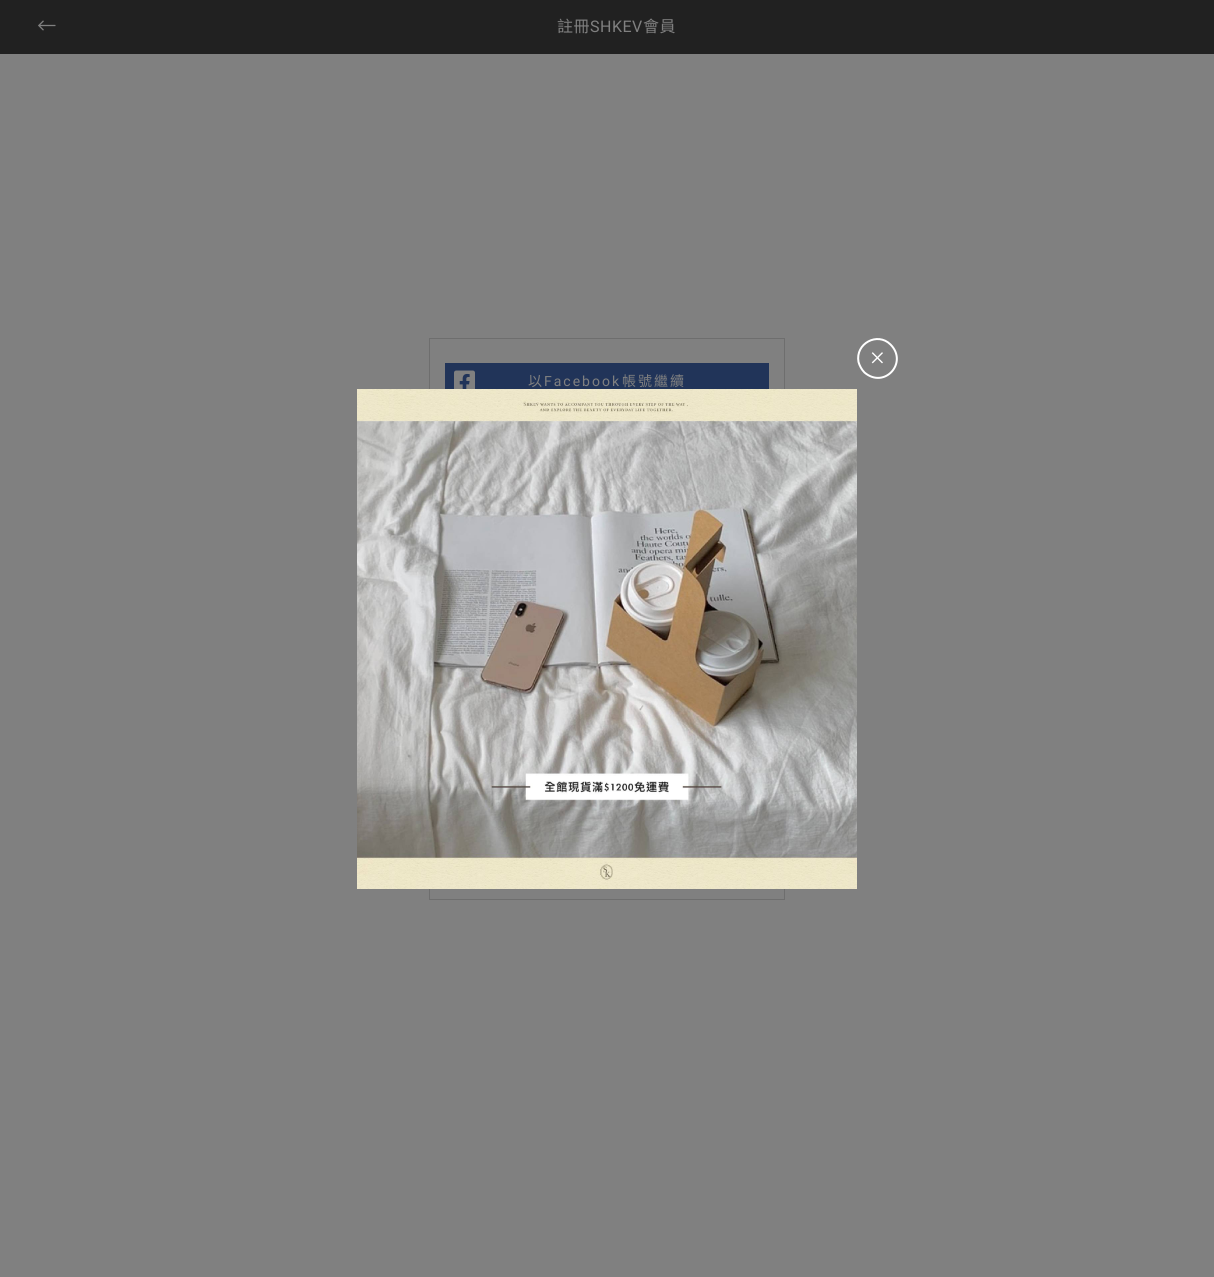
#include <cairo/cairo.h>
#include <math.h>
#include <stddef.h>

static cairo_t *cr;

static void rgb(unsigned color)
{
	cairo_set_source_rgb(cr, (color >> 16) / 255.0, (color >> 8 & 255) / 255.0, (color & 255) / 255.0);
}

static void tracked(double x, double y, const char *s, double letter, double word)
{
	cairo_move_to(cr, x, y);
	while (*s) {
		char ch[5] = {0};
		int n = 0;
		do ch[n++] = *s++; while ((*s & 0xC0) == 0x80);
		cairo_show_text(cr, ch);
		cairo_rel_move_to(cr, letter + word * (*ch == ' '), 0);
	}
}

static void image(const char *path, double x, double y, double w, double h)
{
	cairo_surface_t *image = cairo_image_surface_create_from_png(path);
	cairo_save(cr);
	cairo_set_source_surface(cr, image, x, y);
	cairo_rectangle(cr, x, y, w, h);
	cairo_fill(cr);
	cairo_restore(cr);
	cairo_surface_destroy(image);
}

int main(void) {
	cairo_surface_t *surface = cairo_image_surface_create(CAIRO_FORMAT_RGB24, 1214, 1277);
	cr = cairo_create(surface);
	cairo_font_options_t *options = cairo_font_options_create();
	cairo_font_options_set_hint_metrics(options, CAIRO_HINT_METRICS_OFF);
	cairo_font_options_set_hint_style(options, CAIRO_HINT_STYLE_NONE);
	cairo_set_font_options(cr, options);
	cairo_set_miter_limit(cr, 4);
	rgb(0x808080);
	cairo_paint(cr);
	rgb(0x212121);
	cairo_rectangle(cr, 0, 0, 1214, 54);
	cairo_fill(cr);
	image("img/1.png", 38, 20, 18, 11);
	cairo_rectangle(cr, 429.5, 338.5, 355, 561);
	rgb(0x6e6e6e);
	cairo_set_line_width(cr, 1);
	cairo_stroke(cr);
	rgb(0x213459);
	cairo_rectangle(cr, 445, 363, 324, 26);
	cairo_fill(cr);
	image("img/2.png", 454, 370, 21, 19);
	cairo_new_path(cr);
	cairo_move_to(cr, 890.5, 344.5);
	cairo_curve_to(cr, 908.5, 362.5, 884.5, 389.5, 864.5, 372.5);
	cairo_curve_to(cr, 861.5, 369.5, 859.5, 365.5, 858.5, 362);
	cairo_curve_to(cr, 855, 343.5, 877.5, 331.5, 890.5, 344.5);
	cairo_close_path(cr);
	rgb(0xffffff);
	cairo_set_line_width(cr, 2);
	cairo_stroke(cr);
	image("img/3.png", 357, 389, 500, 500);
	cairo_select_font_face(cr, "Noto Sans CJK TC", CAIRO_FONT_SLANT_NORMAL, CAIRO_FONT_WEIGHT_NORMAL);
	cairo_set_font_size(cr, 16);
	rgb(0x808080);
	tracked(557, 32, "註冊", 0.5, 0);
	cairo_select_font_face(cr, "Roboto", CAIRO_FONT_SLANT_NORMAL, CAIRO_FONT_WEIGHT_NORMAL);
	tracked(590, 32, "SHKEV", 0.5, 0);
	cairo_select_font_face(cr, "Noto Sans CJK TC", CAIRO_FONT_SLANT_NORMAL, CAIRO_FONT_WEIGHT_NORMAL);
	tracked(643, 32, "會員", 0.5, 0);
	cairo_set_font_size(cr, 14);
	tracked(528, 386, "以", 2, 0);
	cairo_select_font_face(cr, "Roboto", CAIRO_FONT_SLANT_NORMAL, CAIRO_FONT_WEIGHT_NORMAL);
	tracked(544, 386, "Facebook", 2, 0);
	cairo_select_font_face(cr, "Noto Sans CJK TC", CAIRO_FONT_SLANT_NORMAL, CAIRO_FONT_WEIGHT_NORMAL);
	tracked(622, 386, "帳號繼續", 2, 0);
	cairo_set_font_size(cr, 20);
	rgb(0xffffff);
	cairo_save(cr);
	cairo_translate(cr, 865, 356);
	cairo_rotate(cr, 45 * M_PI / 180);
	cairo_move_to(cr, 0, 0);
	cairo_show_text(cr, "＋");
	cairo_restore(cr);
	cairo_surface_write_to_png(surface, "page.png");
	cairo_font_options_destroy(options);
	cairo_destroy(cr);
	cairo_surface_destroy(surface);
	return 0;
}
